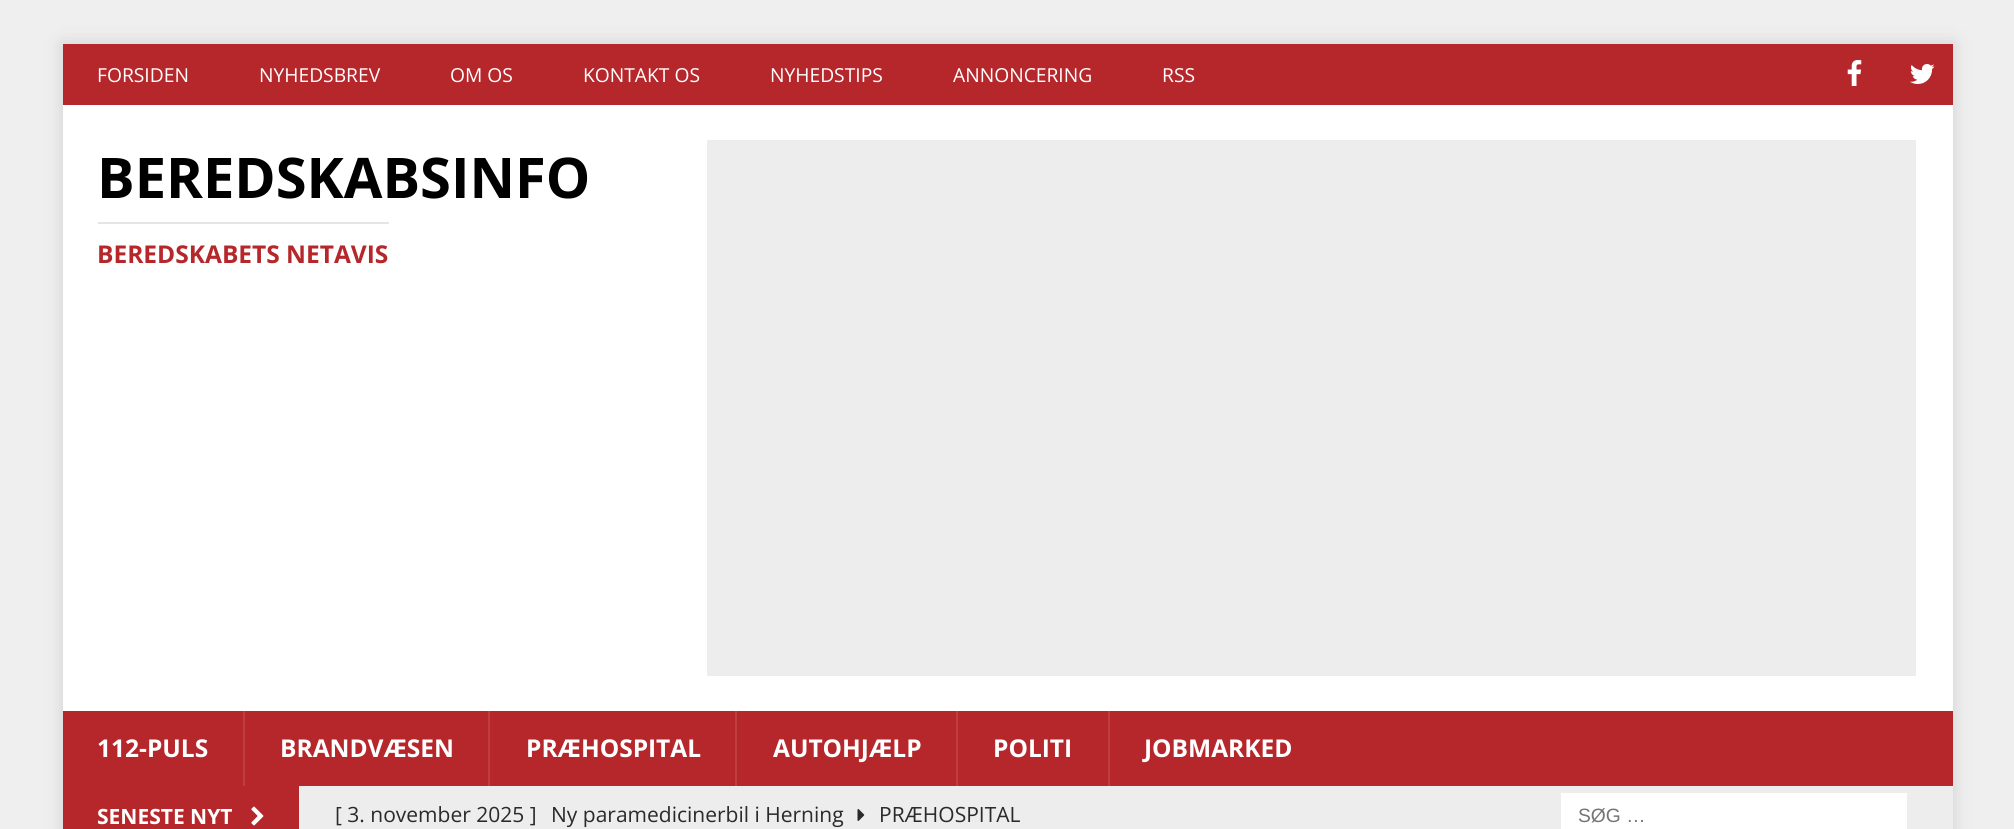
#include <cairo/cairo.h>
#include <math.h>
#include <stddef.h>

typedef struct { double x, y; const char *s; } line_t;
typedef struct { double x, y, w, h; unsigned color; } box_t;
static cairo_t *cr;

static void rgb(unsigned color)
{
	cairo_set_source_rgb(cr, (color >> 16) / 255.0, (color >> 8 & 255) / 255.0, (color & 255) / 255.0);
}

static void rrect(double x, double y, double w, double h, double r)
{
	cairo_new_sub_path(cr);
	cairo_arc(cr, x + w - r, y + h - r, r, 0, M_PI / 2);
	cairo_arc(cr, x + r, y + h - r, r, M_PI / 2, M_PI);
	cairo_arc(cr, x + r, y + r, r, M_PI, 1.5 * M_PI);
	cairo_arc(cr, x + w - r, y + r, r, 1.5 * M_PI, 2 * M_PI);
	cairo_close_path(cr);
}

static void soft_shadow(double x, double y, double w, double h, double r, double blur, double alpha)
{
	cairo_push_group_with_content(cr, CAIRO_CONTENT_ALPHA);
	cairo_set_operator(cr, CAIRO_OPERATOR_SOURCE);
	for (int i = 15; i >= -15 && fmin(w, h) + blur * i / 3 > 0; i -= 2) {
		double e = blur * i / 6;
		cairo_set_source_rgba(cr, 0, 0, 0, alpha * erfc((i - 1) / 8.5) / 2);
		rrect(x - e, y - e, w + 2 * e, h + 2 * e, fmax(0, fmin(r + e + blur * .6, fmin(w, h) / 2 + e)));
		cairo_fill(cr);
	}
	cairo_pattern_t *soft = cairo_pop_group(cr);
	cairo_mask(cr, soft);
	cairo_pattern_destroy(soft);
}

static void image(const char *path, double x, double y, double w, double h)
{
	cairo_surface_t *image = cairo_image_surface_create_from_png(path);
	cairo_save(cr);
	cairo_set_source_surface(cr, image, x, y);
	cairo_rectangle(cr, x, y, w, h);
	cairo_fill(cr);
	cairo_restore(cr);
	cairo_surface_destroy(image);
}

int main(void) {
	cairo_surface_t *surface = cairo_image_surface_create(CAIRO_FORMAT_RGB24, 2014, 829);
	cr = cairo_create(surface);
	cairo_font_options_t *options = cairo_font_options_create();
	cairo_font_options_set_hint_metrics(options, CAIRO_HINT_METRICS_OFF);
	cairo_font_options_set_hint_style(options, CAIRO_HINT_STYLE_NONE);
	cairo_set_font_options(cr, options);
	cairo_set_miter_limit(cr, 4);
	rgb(0xefefef);
	cairo_paint(cr);
	rgb(0x323232);
	soft_shadow(63, 44, 1890, 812, 0, 9, 0.17);
	rgb(0xb6272b);
	cairo_rectangle(cr, 63, 44, 1890, 61);
	cairo_fill(cr);
	image("img/1.png", 1847, 60, 15, 26);
	image("img/2.png", 1910, 64, 25, 20);
	{
		static const box_t items[] = {
			{63, 105, 1890, 606, 0xffffff},
			{98, 222, 291, 2, 0xe5e5e5},
			{707, 140, 1209, 536, 0xededed},
			{63, 711, 1890, 75, 0xb6272b},
			{243, 711, 2, 75, 0xbd3d40},
			{488, 711, 2, 75, 0xbd3d40},
			{735, 711, 2, 75, 0xbd3d40},
			{956, 711, 2, 75, 0xbd3d40},
			{1108, 711, 2, 75, 0xbd3d40},
			{299, 786, 1654, 43, 0xededed},
			{63, 786, 236, 43, 0xb6272b},
		};
		for (size_t i = 0; i < sizeof items / sizeof *items; i++) {
			rgb(items[i].color);
			cairo_rectangle(cr, items[i].x, items[i].y, items[i].w, items[i].h);
			cairo_fill(cr);
		}
	}
	image("img/3.png", 251, 806, 13, 20);
	image("img/4.png", 857, 809, 8, 12);
	rgb(0xffffff);
	cairo_rectangle(cr, 1561, 793, 346, 36);
	cairo_fill(cr);
	cairo_select_font_face(cr, "Open Sans", CAIRO_FONT_SLANT_NORMAL, CAIRO_FONT_WEIGHT_NORMAL);
	cairo_set_font_size(cr, 19.25);
	{
		static const line_t items[] = {
			{97, 82, "FORSIDEN"},
			{259, 82, "NYHEDSBREV"},
			{450, 82, "OM OS"},
			{583, 82, "KONTAKT OS"},
			{770, 82, "NYHEDSTIPS"},
			{953, 82, "ANNONCERING"},
			{1162, 82, "RSS"},
		};
		for (size_t i = 0; i < sizeof items / sizeof *items; i++) {
			cairo_move_to(cr, items[i].x, items[i].y);
			cairo_show_text(cr, items[i].s);
		}
	}
	cairo_select_font_face(cr, "Open Sans", CAIRO_FONT_SLANT_NORMAL, CAIRO_FONT_WEIGHT_BOLD);
	cairo_set_font_size(cr, 56);
	rgb(0x000000);
	cairo_move_to(cr, 97, 198);
	cairo_show_text(cr, "BEREDSKABSINFO");
	cairo_set_font_size(cr, 24.5);
	rgb(0xb6272b);
	cairo_move_to(cr, 97, 263);
	cairo_show_text(cr, "BEREDSKABETS NETAVIS");
	rgb(0xffffff);
	{
		static const line_t items[] = {
			{97, 757, "112-PULS"},
			{280, 757, "BRANDVÆSEN"},
			{526, 757, "PRÆHOSPITAL"},
			{773, 757, "AUTOHJÆLP"},
			{993, 757, "POLITI"},
			{1144, 757, "JOBMARKED"},
		};
		for (size_t i = 0; i < sizeof items / sizeof *items; i++) {
			cairo_move_to(cr, items[i].x, items[i].y);
			cairo_show_text(cr, items[i].s);
		}
	}
	cairo_set_font_size(cr, 21);
	cairo_move_to(cr, 97, 824);
	cairo_show_text(cr, "SENESTE NYT");
	cairo_select_font_face(cr, "Open Sans", CAIRO_FONT_SLANT_NORMAL, CAIRO_FONT_WEIGHT_NORMAL);
	rgb(0x2a2a2a);
	{
		static const line_t items[] = {
			{335, 822, "[ 3. november 2025 ]"},
			{551, 822, "Ny paramedicinerbil i Herning"},
			{879, 822, "PRÆHOSPITAL"},
		};
		for (size_t i = 0; i < sizeof items / sizeof *items; i++) {
			cairo_move_to(cr, items[i].x, items[i].y);
			cairo_show_text(cr, items[i].s);
		}
	}
	cairo_select_font_face(cr, "Liberation Sans", CAIRO_FONT_SLANT_NORMAL, CAIRO_FONT_WEIGHT_NORMAL);
	cairo_set_font_size(cr, 19.25);
	rgb(0x757575);
	cairo_move_to(cr, 1578, 822);
	cairo_show_text(cr, "SØG …");
	cairo_surface_write_to_png(surface, "page.png");
	cairo_font_options_destroy(options);
	cairo_destroy(cr);
	cairo_surface_destroy(surface);
	return 0;
}
